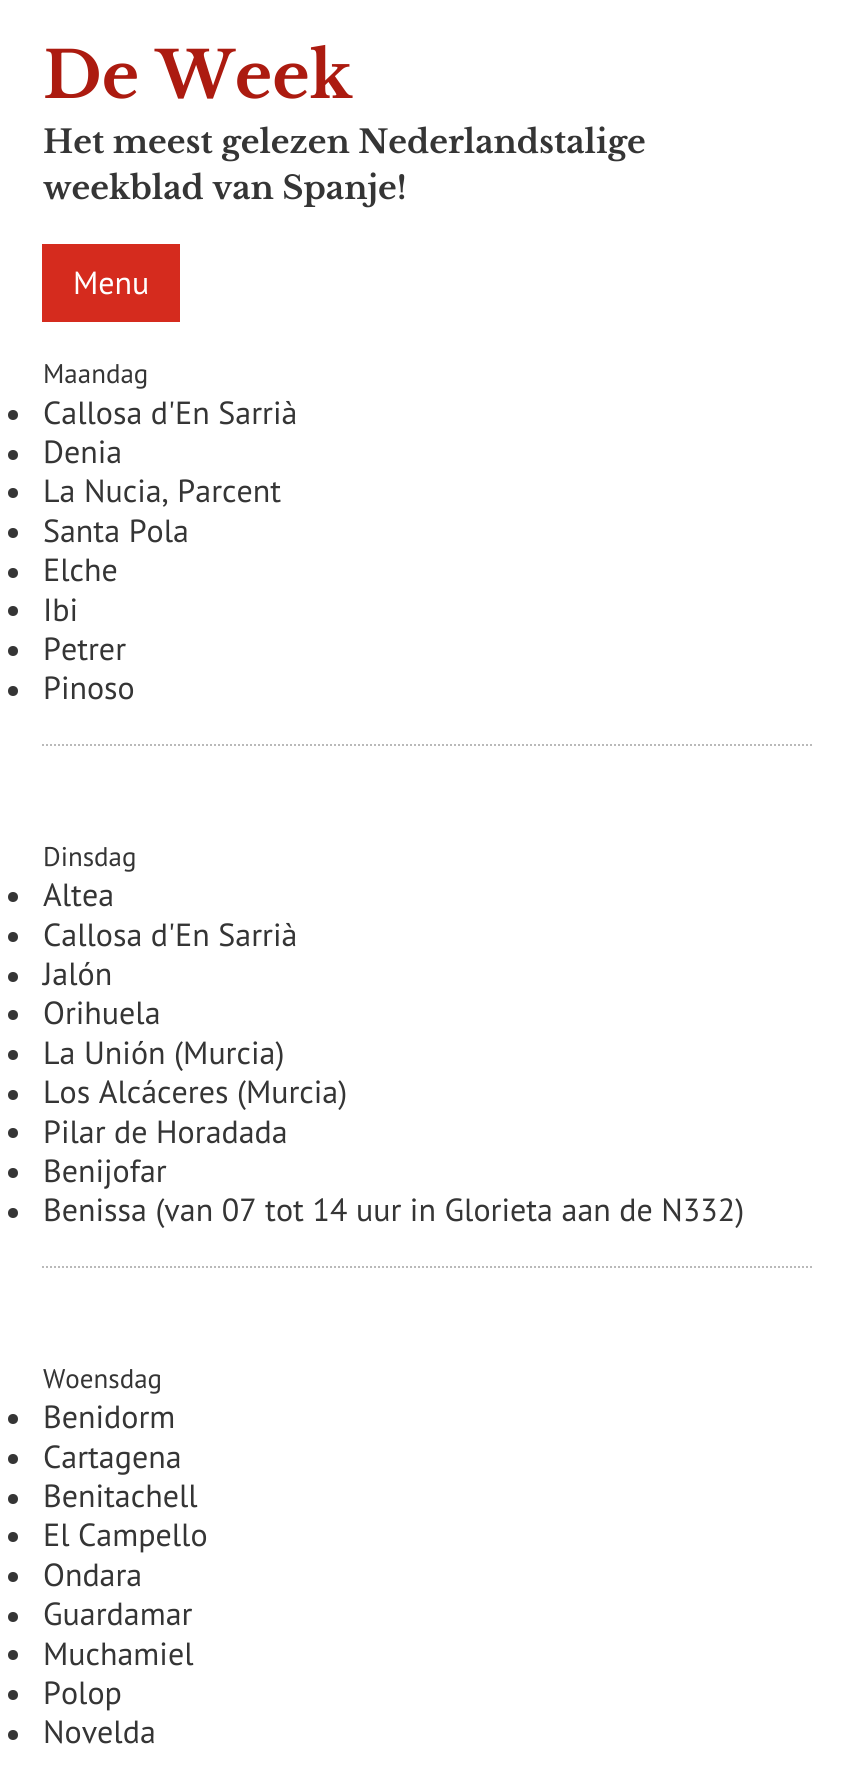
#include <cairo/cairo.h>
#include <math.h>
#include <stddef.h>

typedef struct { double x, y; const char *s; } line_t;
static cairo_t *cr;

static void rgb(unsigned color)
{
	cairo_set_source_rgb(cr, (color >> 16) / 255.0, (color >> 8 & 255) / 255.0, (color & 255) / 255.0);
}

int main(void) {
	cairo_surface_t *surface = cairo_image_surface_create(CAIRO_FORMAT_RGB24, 853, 1767);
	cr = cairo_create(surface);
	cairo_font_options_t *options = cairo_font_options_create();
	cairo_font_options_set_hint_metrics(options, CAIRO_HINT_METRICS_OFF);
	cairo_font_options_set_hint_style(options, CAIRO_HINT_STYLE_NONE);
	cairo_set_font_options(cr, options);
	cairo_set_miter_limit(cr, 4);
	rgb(0xffffff);
	cairo_paint(cr);
	rgb(0xd52b1e);
	cairo_rectangle(cr, 42, 244, 138, 78);
	cairo_fill(cr);
	cairo_new_path(cr);
	cairo_move_to(cr, 42, 745);
	cairo_line_to(cr, 812, 745);
	rgb(0xbababa);
	cairo_set_dash(cr, (double[]){2, 2}, 2, 0);
	cairo_stroke(cr);
	rgb(0x353535);
	cairo_arc(cr, 13, 415, 5, 0, 2 * M_PI);
	cairo_fill(cr);
	cairo_arc(cr, 13, 455, 5, 0, 2 * M_PI);
	cairo_fill(cr);
	cairo_arc(cr, 13, 493, 5, 0, 2 * M_PI);
	cairo_fill(cr);
	cairo_arc(cr, 13, 533, 5, 0, 2 * M_PI);
	cairo_fill(cr);
	cairo_arc(cr, 13, 573, 5, 0, 2 * M_PI);
	cairo_fill(cr);
	cairo_arc(cr, 13, 611, 5, 0, 2 * M_PI);
	cairo_fill(cr);
	cairo_arc(cr, 13, 651, 5, 0, 2 * M_PI);
	cairo_fill(cr);
	cairo_arc(cr, 13, 691, 5, 0, 2 * M_PI);
	cairo_fill(cr);
	cairo_new_path(cr);
	cairo_move_to(cr, 42, 1267);
	cairo_line_to(cr, 812, 1267);
	rgb(0xbababa);
	cairo_stroke(cr);
	rgb(0x353535);
	cairo_arc(cr, 13, 897, 5, 0, 2 * M_PI);
	cairo_fill(cr);
	cairo_arc(cr, 13, 937, 5, 0, 2 * M_PI);
	cairo_fill(cr);
	cairo_arc(cr, 13, 977, 5, 0, 2 * M_PI);
	cairo_fill(cr);
	cairo_arc(cr, 13, 1015, 5, 0, 2 * M_PI);
	cairo_fill(cr);
	cairo_arc(cr, 13, 1055, 5, 0, 2 * M_PI);
	cairo_fill(cr);
	cairo_arc(cr, 13, 1095, 5, 0, 2 * M_PI);
	cairo_fill(cr);
	cairo_arc(cr, 13, 1133, 5, 0, 2 * M_PI);
	cairo_fill(cr);
	cairo_arc(cr, 13, 1173, 5, 0, 2 * M_PI);
	cairo_fill(cr);
	cairo_arc(cr, 13, 1213, 5, 0, 2 * M_PI);
	cairo_fill(cr);
	cairo_arc(cr, 13, 1419, 5, 0, 2 * M_PI);
	cairo_fill(cr);
	cairo_arc(cr, 13, 1459, 5, 0, 2 * M_PI);
	cairo_fill(cr);
	cairo_arc(cr, 13, 1499, 5, 0, 2 * M_PI);
	cairo_fill(cr);
	cairo_arc(cr, 13, 1537, 5, 0, 2 * M_PI);
	cairo_fill(cr);
	cairo_arc(cr, 13, 1577, 5, 0, 2 * M_PI);
	cairo_fill(cr);
	cairo_arc(cr, 13, 1617, 5, 0, 2 * M_PI);
	cairo_fill(cr);
	cairo_arc(cr, 13, 1655, 5, 0, 2 * M_PI);
	cairo_fill(cr);
	cairo_arc(cr, 13, 1695, 5, 0, 2 * M_PI);
	cairo_fill(cr);
	cairo_arc(cr, 13, 1735, 5, 0, 2 * M_PI);
	cairo_fill(cr);
	cairo_select_font_face(cr, "Libre Baskerville", CAIRO_FONT_SLANT_NORMAL, CAIRO_FONT_WEIGHT_BOLD);
	cairo_set_font_size(cr, 64);
	rgb(0xac1b10);
	cairo_move_to(cr, 43, 98);
	cairo_show_text(cr, "De Week");
	cairo_set_font_size(cr, 32);
	rgb(0x353535);
	cairo_move_to(cr, 43, 153);
	cairo_show_text(cr, "Het meest gelezen Nederlandstalige");
	cairo_move_to(cr, 43, 199);
	cairo_show_text(cr, "weekblad van Spanje!");
	cairo_select_font_face(cr, "PT Sans", CAIRO_FONT_SLANT_NORMAL, CAIRO_FONT_WEIGHT_NORMAL);
	rgb(0xffffff);
	cairo_move_to(cr, 73, 294);
	cairo_show_text(cr, "Menu");
	cairo_set_font_size(cr, 27);
	rgb(0x353535);
	cairo_move_to(cr, 43, 383);
	cairo_show_text(cr, "Maandag");
	cairo_set_font_size(cr, 32);
	{
		static const line_t items[] = {
			{43, 424, "Callosa d'En Sarrià"},
			{43, 463, "Denia"},
			{43, 502, "La Nucia, Parcent"},
			{43, 542, "Santa Pola"},
			{43, 581, "Elche"},
			{43, 621, "Ibi"},
			{43, 660, "Petrer"},
			{43, 699, "Pinoso"},
		};
		for (size_t i = 0; i < sizeof items / sizeof *items; i++) {
			cairo_move_to(cr, items[i].x, items[i].y);
			cairo_show_text(cr, items[i].s);
		}
	}
	cairo_set_font_size(cr, 27);
	cairo_move_to(cr, 43, 866);
	cairo_show_text(cr, "Dinsdag");
	cairo_set_font_size(cr, 32);
	{
		static const line_t items[] = {
			{43, 906, "Altea"},
			{43, 946, "Callosa d'En Sarrià"},
			{43, 985, "Jalón"},
			{43, 1024, "Orihuela"},
			{43, 1064, "La Unión (Murcia)"},
			{43, 1103, "Los Alcáceres (Murcia)"},
			{43, 1143, "Pilar de Horadada"},
			{43, 1182, "Benijofar"},
			{43, 1221, "Benissa (van 07 tot 14 uur in Glorieta aan de N332)"},
		};
		for (size_t i = 0; i < sizeof items / sizeof *items; i++) {
			cairo_move_to(cr, items[i].x, items[i].y);
			cairo_show_text(cr, items[i].s);
		}
	}
	cairo_set_font_size(cr, 27);
	cairo_move_to(cr, 43, 1388);
	cairo_show_text(cr, "Woensdag");
	cairo_set_font_size(cr, 32);
	{
		static const line_t items[] = {
			{43, 1428, "Benidorm"},
			{43, 1468, "Cartagena"},
			{43, 1507, "Benitachell"},
			{43, 1546, "El Campello"},
			{43, 1586, "Ondara"},
			{43, 1625, "Guardamar"},
			{43, 1665, "Muchamiel"},
			{43, 1704, "Polop"},
			{43, 1743, "Novelda"},
		};
		for (size_t i = 0; i < sizeof items / sizeof *items; i++) {
			cairo_move_to(cr, items[i].x, items[i].y);
			cairo_show_text(cr, items[i].s);
		}
	}
	cairo_surface_write_to_png(surface, "page.png");
	cairo_font_options_destroy(options);
	cairo_destroy(cr);
	cairo_surface_destroy(surface);
	return 0;
}
